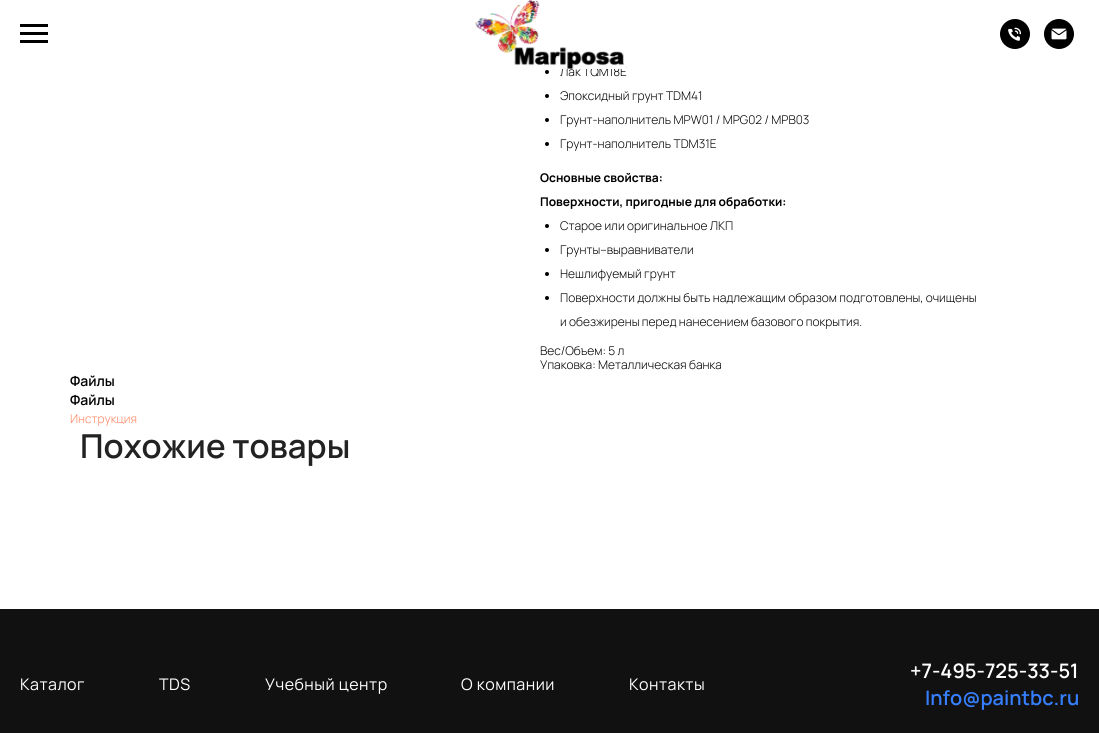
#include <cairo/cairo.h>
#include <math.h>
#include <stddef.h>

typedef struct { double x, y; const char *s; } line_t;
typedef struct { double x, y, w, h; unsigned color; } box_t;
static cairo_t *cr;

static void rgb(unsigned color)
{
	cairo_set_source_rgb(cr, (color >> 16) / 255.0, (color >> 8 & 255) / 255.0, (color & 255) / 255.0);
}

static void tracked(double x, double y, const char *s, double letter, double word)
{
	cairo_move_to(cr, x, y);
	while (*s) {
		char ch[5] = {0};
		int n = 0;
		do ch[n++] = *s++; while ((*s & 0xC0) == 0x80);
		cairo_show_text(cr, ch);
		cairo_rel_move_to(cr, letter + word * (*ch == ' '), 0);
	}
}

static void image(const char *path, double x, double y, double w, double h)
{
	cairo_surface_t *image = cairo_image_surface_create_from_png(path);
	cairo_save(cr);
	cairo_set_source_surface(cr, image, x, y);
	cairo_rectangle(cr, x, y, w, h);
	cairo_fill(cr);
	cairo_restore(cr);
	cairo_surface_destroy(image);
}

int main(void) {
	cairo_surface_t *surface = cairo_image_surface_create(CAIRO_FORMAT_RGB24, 1099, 733);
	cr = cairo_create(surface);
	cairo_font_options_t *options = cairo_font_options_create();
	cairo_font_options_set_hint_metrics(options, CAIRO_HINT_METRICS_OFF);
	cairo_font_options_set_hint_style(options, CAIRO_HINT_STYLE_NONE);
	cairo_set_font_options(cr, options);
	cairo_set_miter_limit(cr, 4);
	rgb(0xffffff);
	cairo_paint(cr);
	{
		static const box_t items[] = {
			{20, 24, 28, 3, 0x000000},
			{20, 32, 28, 3, 0x000000},
			{20, 40, 28, 3, 0x000000},
		};
		for (size_t i = 0; i < sizeof items / sizeof *items; i++) {
			rgb(items[i].color);
			cairo_rectangle(cr, items[i].x, items[i].y, items[i].w, items[i].h);
			cairo_fill(cr);
		}
	}
	image("img/2.png", 1000, 19, 30, 30);
	image("img/3.png", 1044, 19, 30, 30);
	cairo_arc(cr, 547, 72, 2, 0, 2 * M_PI);
	cairo_fill(cr);
	cairo_arc(cr, 547, 96, 2, 0, 2 * M_PI);
	cairo_fill(cr);
	cairo_arc(cr, 547, 120, 2, 0, 2 * M_PI);
	cairo_fill(cr);
	cairo_arc(cr, 547, 144, 2, 0, 2 * M_PI);
	cairo_fill(cr);
	cairo_arc(cr, 547, 226, 2, 0, 2 * M_PI);
	cairo_fill(cr);
	cairo_arc(cr, 547, 250, 2, 0, 2 * M_PI);
	cairo_fill(cr);
	cairo_arc(cr, 547, 274, 2, 0, 2 * M_PI);
	cairo_fill(cr);
	cairo_arc(cr, 547, 298, 2, 0, 2 * M_PI);
	cairo_fill(cr);
	rgb(0x111111);
	cairo_rectangle(cr, 0, 609, 1099, 124);
	cairo_fill(cr);
	cairo_select_font_face(cr, "Manrope Light", CAIRO_FONT_SLANT_NORMAL, CAIRO_FONT_WEIGHT_NORMAL);
	cairo_set_font_size(cr, 12);
	rgb(0x000000);
	cairo_move_to(cr, 560, 76);
	cairo_show_text(cr, "Лак TQM18Е");
	rgb(0xffffff);
	cairo_rectangle(cr, 561, 67, 65, 2);
	cairo_fill(cr);
	image("img/1.png", 475, 0, 150, 69);
	rgb(0x000000);
	{
		static const line_t items[] = {
			{560, 100, "Эпоксидный грунт TDM41"},
			{560, 124, "Грунт-наполнитель MPW01 / MPG02 / MPB03"},
			{560, 148, "Грунт-наполнитель TDM31Е"},
		};
		for (size_t i = 0; i < sizeof items / sizeof *items; i++) {
			cairo_move_to(cr, items[i].x, items[i].y);
			cairo_show_text(cr, items[i].s);
		}
	}
	cairo_select_font_face(cr, "Manrope", CAIRO_FONT_SLANT_NORMAL, CAIRO_FONT_WEIGHT_BOLD);
	cairo_move_to(cr, 540, 182);
	cairo_show_text(cr, "Основные свойства:");
	cairo_move_to(cr, 540, 206);
	cairo_show_text(cr, "Поверхности, пригодные для обработки:");
	cairo_select_font_face(cr, "Manrope Light", CAIRO_FONT_SLANT_NORMAL, CAIRO_FONT_WEIGHT_NORMAL);
	{
		static const line_t items[] = {
			{560, 230, "Старое или оригинальное ЛКП"},
			{560, 254, "Грунты–выравниватели"},
			{560, 278, "Нешлифуемый грунт"},
			{560, 302, "Поверхности должны быть надлежащим образом подготовлены, очищены"},
			{560, 326, "и обезжирены перед нанесением базового покрытия."},
			{540, 355, "Вес/Объем: 5 л"},
			{540, 369, "Упаковка: Металлическая банка"},
		};
		for (size_t i = 0; i < sizeof items / sizeof *items; i++) {
			cairo_move_to(cr, items[i].x, items[i].y);
			cairo_show_text(cr, items[i].s);
		}
	}
	cairo_select_font_face(cr, "Manrope SemiBold", CAIRO_FONT_SLANT_NORMAL, CAIRO_FONT_WEIGHT_NORMAL);
	cairo_set_font_size(cr, 14);
	cairo_move_to(cr, 70, 386);
	cairo_show_text(cr, "Файлы");
	cairo_move_to(cr, 70, 405);
	cairo_show_text(cr, "Файлы");
	cairo_select_font_face(cr, "Manrope Light", CAIRO_FONT_SLANT_NORMAL, CAIRO_FONT_WEIGHT_NORMAL);
	cairo_set_font_size(cr, 12);
	rgb(0xff8562);
	cairo_move_to(cr, 70, 423);
	cairo_show_text(cr, "Инструкция");
	cairo_select_font_face(cr, "Manrope SemiBold", CAIRO_FONT_SLANT_NORMAL, CAIRO_FONT_WEIGHT_NORMAL);
	cairo_set_font_size(cr, 33);
	rgb(0x222222);
	cairo_move_to(cr, 80, 458);
	cairo_show_text(cr, "Похожие товары");
	cairo_select_font_face(cr, "Manrope", CAIRO_FONT_SLANT_NORMAL, CAIRO_FONT_WEIGHT_NORMAL);
	cairo_set_font_size(cr, 16);
	rgb(0xffffff);
	{
		static const line_t items[] = {
			{20, 690, "Каталог"},
			{159, 690, "TDS"},
			{265, 690, "Учебный центр"},
			{461, 690, "О компании"},
			{629, 690, "Контакты"},
		};
		for (size_t i = 0; i < sizeof items / sizeof *items; i++) {
			tracked(items[i].x, items[i].y, items[i].s, 0.5, 0);
		}
	}
	cairo_select_font_face(cr, "Manrope SemiBold", CAIRO_FONT_SLANT_NORMAL, CAIRO_FONT_WEIGHT_NORMAL);
	cairo_set_font_size(cr, 20);
	cairo_move_to(cr, 910, 678);
	cairo_show_text(cr, "+7-495-725-33-51");
	rgb(0x367fff);
	cairo_move_to(cr, 925, 705);
	cairo_show_text(cr, "Info@paintbc.ru");
	cairo_surface_write_to_png(surface, "page.png");
	cairo_font_options_destroy(options);
	cairo_destroy(cr);
	cairo_surface_destroy(surface);
	return 0;
}
